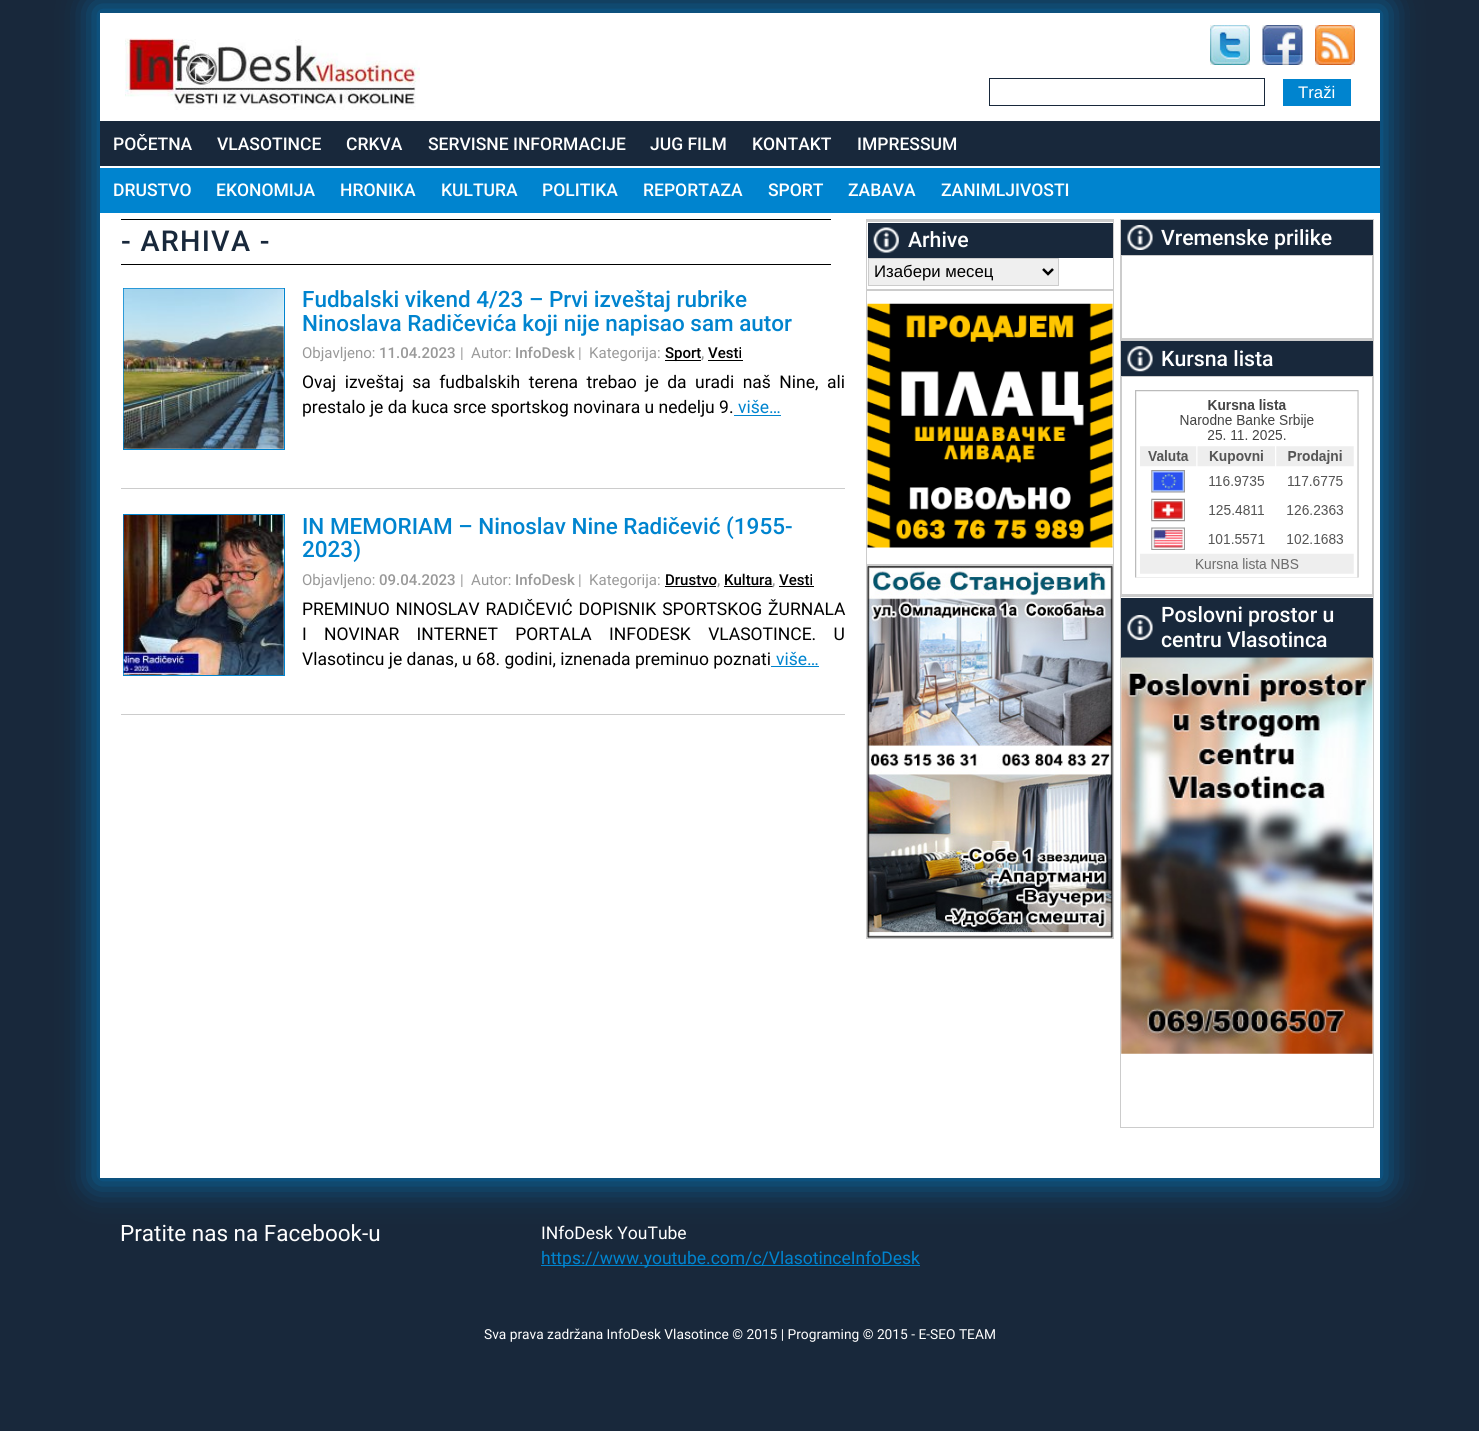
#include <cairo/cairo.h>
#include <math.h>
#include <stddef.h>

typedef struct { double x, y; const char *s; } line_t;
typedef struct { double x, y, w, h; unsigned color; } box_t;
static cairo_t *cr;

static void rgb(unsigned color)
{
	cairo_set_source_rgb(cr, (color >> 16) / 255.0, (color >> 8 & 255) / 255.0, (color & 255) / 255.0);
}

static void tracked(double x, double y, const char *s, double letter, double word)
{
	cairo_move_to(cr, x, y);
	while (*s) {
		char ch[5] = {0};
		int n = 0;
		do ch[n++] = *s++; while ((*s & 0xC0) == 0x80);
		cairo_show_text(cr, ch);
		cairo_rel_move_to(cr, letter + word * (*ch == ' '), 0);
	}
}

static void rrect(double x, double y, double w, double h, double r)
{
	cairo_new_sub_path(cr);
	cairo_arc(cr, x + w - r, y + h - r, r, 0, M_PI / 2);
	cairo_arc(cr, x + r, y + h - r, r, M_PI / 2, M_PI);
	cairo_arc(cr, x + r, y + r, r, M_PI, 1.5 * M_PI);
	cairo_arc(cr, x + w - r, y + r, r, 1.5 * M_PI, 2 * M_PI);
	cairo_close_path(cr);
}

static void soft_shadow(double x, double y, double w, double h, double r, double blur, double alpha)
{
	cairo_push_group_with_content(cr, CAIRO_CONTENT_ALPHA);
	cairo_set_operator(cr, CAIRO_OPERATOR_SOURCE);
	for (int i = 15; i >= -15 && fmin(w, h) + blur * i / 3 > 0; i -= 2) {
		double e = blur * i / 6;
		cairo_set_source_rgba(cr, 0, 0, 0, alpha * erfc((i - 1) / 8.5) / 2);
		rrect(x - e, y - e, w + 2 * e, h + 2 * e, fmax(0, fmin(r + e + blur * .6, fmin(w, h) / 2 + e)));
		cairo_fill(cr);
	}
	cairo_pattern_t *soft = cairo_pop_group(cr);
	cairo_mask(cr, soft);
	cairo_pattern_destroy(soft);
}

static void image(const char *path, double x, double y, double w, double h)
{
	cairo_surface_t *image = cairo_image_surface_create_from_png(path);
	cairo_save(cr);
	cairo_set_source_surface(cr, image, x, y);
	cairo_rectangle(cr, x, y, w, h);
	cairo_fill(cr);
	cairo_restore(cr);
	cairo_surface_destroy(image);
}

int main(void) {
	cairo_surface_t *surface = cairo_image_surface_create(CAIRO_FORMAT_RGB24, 1479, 1431);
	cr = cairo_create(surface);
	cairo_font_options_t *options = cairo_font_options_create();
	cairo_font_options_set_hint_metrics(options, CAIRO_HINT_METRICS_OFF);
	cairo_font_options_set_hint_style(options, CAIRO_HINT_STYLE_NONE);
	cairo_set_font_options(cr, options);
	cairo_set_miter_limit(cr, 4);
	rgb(0x18283b);
	cairo_paint(cr);
	rgb(0x0084cf);
	soft_shadow(94, 6, 1292, 1178, 0, 16, 0.71);
	rgb(0xffffff);
	cairo_rectangle(cr, 100, 13, 1280, 1165);
	cairo_fill(cr);
	image("img/1.png", 125, 38, 295, 72);
	image("img/2.png", 1210, 25, 40, 40);
	image("img/3.png", 1262, 25, 41, 40);
	image("img/4.png", 1315, 25, 40, 40);
	cairo_rectangle(cr, 989.5, 78.5, 275, 27);
	rgb(0x18283b);
	cairo_set_line_width(cr, 1);
	cairo_stroke(cr);
	{
		static const box_t items[] = {
			{1283, 79, 68, 27, 0x0084cf},
			{100, 121, 1280, 45, 0x18283b},
			{100, 168, 1280, 45, 0x0084cf},
			{121, 219, 710, 1, 0x000000},
			{121, 264, 710, 1, 0x000000},
			{121, 488, 724, 1, 0xcccccc},
		};
		for (size_t i = 0; i < sizeof items / sizeof *items; i++) {
			rgb(items[i].color);
			cairo_rectangle(cr, items[i].x, items[i].y, items[i].w, items[i].h);
			cairo_fill(cr);
		}
	}
	cairo_rectangle(cr, 123.5, 288.5, 161, 161);
	rgb(0x0084cf);
	cairo_stroke(cr);
	image("img/5.png", 123, 288, 161, 161);
	{
		static const box_t items[] = {
			{665, 360, 36, 1, 0x000000},
			{708, 360, 35, 1, 0x000000},
			{734, 415, 47, 1, 0x0084cf},
			{121, 714, 724, 1, 0xcccccc},
		};
		for (size_t i = 0; i < sizeof items / sizeof *items; i++) {
			rgb(items[i].color);
			cairo_rectangle(cr, items[i].x, items[i].y, items[i].w, items[i].h);
			cairo_fill(cr);
		}
	}
	cairo_rectangle(cr, 123.5, 514.5, 161, 161);
	rgb(0x0084cf);
	cairo_stroke(cr);
	image("img/6.png", 123, 515, 161, 160);
	{
		static const box_t items[] = {
			{665, 586, 51, 1, 0x000000},
			{724, 586, 49, 1, 0x000000},
			{779, 586, 35, 1, 0x000000},
			{771, 666, 48, 1, 0x0084cf},
			{866, 219, 248, 2, 0xcccccc},
		};
		for (size_t i = 0; i < sizeof items / sizeof *items; i++) {
			rgb(items[i].color);
			cairo_rectangle(cr, items[i].x, items[i].y, items[i].w, items[i].h);
			cairo_fill(cr);
		}
	}
	cairo_rectangle(cr, 866.5, 221.5, 247, 68);
	cairo_stroke(cr);
	rgb(0x18283b);
	cairo_rectangle(cr, 868, 223, 245, 35);
	cairo_fill(cr);
	image("img/7.png", 873, 227, 26, 26);
	rgb(0xefefef);
	cairo_rectangle(cr, 868.5, 258.5, 190, 27);
	cairo_fill_preserve(cr);
	rgb(0xcccccc);
	cairo_stroke(cr);
	cairo_new_path(cr);
	cairo_move_to(cr, 1043, 269);
	cairo_line_to(cr, 1048, 274);
	cairo_line_to(cr, 1053, 269);
	rgb(0x000000);
	cairo_set_line_width(cr, 2.5);
	cairo_stroke(cr);
	cairo_rectangle(cr, 866.5, 290.5, 247, 274);
	rgb(0xcccccc);
	cairo_set_line_width(cr, 1);
	cairo_stroke(cr);
	image("img/8.png", 867, 303, 246, 245);
	cairo_rectangle(cr, 866.5, 565.5, 247, 373);
	cairo_stroke(cr);
	image("img/9.png", 867, 566, 246, 372);
	cairo_rectangle(cr, 1120.5, 219.5, 253, 120);
	cairo_stroke(cr);
	rgb(0x18283b);
	cairo_rectangle(cr, 1121, 220, 252, 35);
	cairo_fill(cr);
	image("img/10.png", 1127, 225, 26, 25);
	cairo_rectangle(cr, 1121.5, 255.5, 251, 83);
	rgb(0xcccccc);
	cairo_stroke(cr);
	cairo_rectangle(cr, 1120.5, 340.5, 253, 255);
	cairo_stroke(cr);
	rgb(0x18283b);
	cairo_rectangle(cr, 1121, 341, 252, 35);
	cairo_fill(cr);
	image("img/11.png", 1127, 346, 26, 26);
	cairo_rectangle(cr, 1121.5, 376.5, 251, 218);
	rgb(0xcccccc);
	cairo_stroke(cr);
	image("img/12.png", 1135, 390, 224, 188);
	cairo_rectangle(cr, 1120.5, 596.5, 253, 531);
	cairo_stroke(cr);
	rgb(0x18283b);
	cairo_rectangle(cr, 1121, 598, 252, 60);
	cairo_fill(cr);
	image("img/10.png", 1127, 615, 26, 25);
	image("img/13.png", 1121, 657, 252, 397);
	rgb(0x0084cf);
	cairo_rectangle(cr, 541, 1265, 379, 1);
	cairo_fill(cr);
	cairo_select_font_face(cr, "Liberation Sans", CAIRO_FONT_SLANT_NORMAL, CAIRO_FONT_WEIGHT_NORMAL);
	cairo_set_font_size(cr, 16.75);
	rgb(0xffffff);
	cairo_move_to(cr, 1298, 98);
	cairo_show_text(cr, "Traži");
	cairo_select_font_face(cr, "Roboto Medium", CAIRO_FONT_SLANT_NORMAL, CAIRO_FONT_WEIGHT_NORMAL);
	cairo_set_font_size(cr, 17.5);
	{
		static const line_t items[] = {
			{113, 150, "POČETNA"},
			{217, 150, "VLASOTINCE"},
			{346, 150, "CRKVA"},
			{428, 150, "SERVISNE INFORMACIJE"},
			{650, 150, "JUG FILM"},
			{752, 150, "KONTAKT"},
			{857, 150, "IMPRESSUM"},
			{113, 196, "DRUSTVO"},
			{216, 196, "EKONOMIJA"},
			{340, 196, "HRONIKA"},
			{441, 196, "KULTURA"},
			{542, 196, "POLITIKA"},
			{643, 196, "REPORTAZA"},
			{768, 196, "SPORT"},
			{848, 196, "ZABAVA"},
			{941, 196, "ZANIMLJIVOSTI"},
		};
		for (size_t i = 0; i < sizeof items / sizeof *items; i++) {
			cairo_move_to(cr, items[i].x, items[i].y);
			cairo_show_text(cr, items[i].s);
		}
	}
	cairo_set_font_size(cr, 28.75);
	rgb(0x18283b);
	tracked(121, 251, "- ARHIVA -", 1.25, 0);
	cairo_set_font_size(cr, 22.5);
	rgb(0x0084cf);
	cairo_move_to(cr, 302, 307);
	cairo_show_text(cr, "Fudbalski vikend 4/23 – Prvi izveštaj rubrike");
	cairo_move_to(cr, 302, 331);
	cairo_show_text(cr, "Ninoslava Radičevića koji nije napisao sam autor");
	cairo_select_font_face(cr, "Roboto", CAIRO_FONT_SLANT_NORMAL, CAIRO_FONT_WEIGHT_NORMAL);
	cairo_set_font_size(cr, 15);
	rgb(0x999999);
	cairo_move_to(cr, 302, 358);
	cairo_show_text(cr, "Objavljeno:");
	cairo_select_font_face(cr, "Roboto Medium", CAIRO_FONT_SLANT_NORMAL, CAIRO_FONT_WEIGHT_NORMAL);
	cairo_move_to(cr, 379, 358);
	cairo_show_text(cr, "11.04.2023");
	cairo_select_font_face(cr, "Roboto", CAIRO_FONT_SLANT_NORMAL, CAIRO_FONT_WEIGHT_NORMAL);
	cairo_move_to(cr, 460, 358);
	cairo_show_text(cr, "|  Autor:");
	cairo_select_font_face(cr, "Roboto Medium", CAIRO_FONT_SLANT_NORMAL, CAIRO_FONT_WEIGHT_NORMAL);
	cairo_move_to(cr, 515, 358);
	cairo_show_text(cr, "InfoDesk");
	cairo_select_font_face(cr, "Roboto", CAIRO_FONT_SLANT_NORMAL, CAIRO_FONT_WEIGHT_NORMAL);
	cairo_move_to(cr, 578, 358);
	cairo_show_text(cr, "|  Kategorija:");
	cairo_select_font_face(cr, "Roboto Medium", CAIRO_FONT_SLANT_NORMAL, CAIRO_FONT_WEIGHT_NORMAL);
	rgb(0x000000);
	cairo_move_to(cr, 665, 358);
	cairo_show_text(cr, "Sport");
	rgb(0x999999);
	cairo_move_to(cr, 701, 358);
	cairo_show_text(cr, ",");
	rgb(0x000000);
	cairo_move_to(cr, 708, 358);
	cairo_show_text(cr, "Vesti");
	cairo_select_font_face(cr, "Roboto", CAIRO_FONT_SLANT_NORMAL, CAIRO_FONT_WEIGHT_NORMAL);
	cairo_set_font_size(cr, 17.5);
	tracked(302, 388, "Ovaj izveštaj sa fudbalskih terena trebao je da uradi naš Nine, ali", 0, 4.1);
	cairo_move_to(cr, 302, 413);
	cairo_show_text(cr, "prestalo je da kuca srce sportskog novinara u nedelju 9.");
	rgb(0x0084cf);
	cairo_move_to(cr, 738, 413);
	cairo_show_text(cr, "više…");
	cairo_select_font_face(cr, "Roboto Medium", CAIRO_FONT_SLANT_NORMAL, CAIRO_FONT_WEIGHT_NORMAL);
	cairo_set_font_size(cr, 22.5);
	cairo_move_to(cr, 302, 534);
	cairo_show_text(cr, "IN MEMORIAM – Ninoslav Nine Radičević (1955-");
	cairo_move_to(cr, 302, 557);
	cairo_show_text(cr, "2023)");
	cairo_select_font_face(cr, "Roboto", CAIRO_FONT_SLANT_NORMAL, CAIRO_FONT_WEIGHT_NORMAL);
	cairo_set_font_size(cr, 15);
	rgb(0x999999);
	cairo_move_to(cr, 302, 585);
	cairo_show_text(cr, "Objavljeno:");
	cairo_select_font_face(cr, "Roboto Medium", CAIRO_FONT_SLANT_NORMAL, CAIRO_FONT_WEIGHT_NORMAL);
	cairo_move_to(cr, 379, 585);
	cairo_show_text(cr, "09.04.2023");
	cairo_select_font_face(cr, "Roboto", CAIRO_FONT_SLANT_NORMAL, CAIRO_FONT_WEIGHT_NORMAL);
	cairo_move_to(cr, 460, 585);
	cairo_show_text(cr, "|  Autor:");
	cairo_select_font_face(cr, "Roboto Medium", CAIRO_FONT_SLANT_NORMAL, CAIRO_FONT_WEIGHT_NORMAL);
	cairo_move_to(cr, 515, 585);
	cairo_show_text(cr, "InfoDesk");
	cairo_select_font_face(cr, "Roboto", CAIRO_FONT_SLANT_NORMAL, CAIRO_FONT_WEIGHT_NORMAL);
	cairo_move_to(cr, 578, 585);
	cairo_show_text(cr, "|  Kategorija:");
	cairo_select_font_face(cr, "Roboto Medium", CAIRO_FONT_SLANT_NORMAL, CAIRO_FONT_WEIGHT_NORMAL);
	rgb(0x000000);
	cairo_move_to(cr, 665, 585);
	cairo_show_text(cr, "Drustvo");
	rgb(0x999999);
	cairo_move_to(cr, 717, 585);
	cairo_show_text(cr, ",");
	rgb(0x000000);
	cairo_move_to(cr, 724, 585);
	cairo_show_text(cr, "Kultura");
	rgb(0x999999);
	cairo_move_to(cr, 772, 585);
	cairo_show_text(cr, ",");
	rgb(0x000000);
	cairo_move_to(cr, 779, 585);
	cairo_show_text(cr, "Vesti");
	cairo_select_font_face(cr, "Roboto", CAIRO_FONT_SLANT_NORMAL, CAIRO_FONT_WEIGHT_NORMAL);
	cairo_set_font_size(cr, 17.5);
	tracked(302, 615, "PREMINUO NINOSLAV RADIČEVIĆ DOPISNIK SPORTSKOG ŽURNALA", 0, 1.5);
	tracked(302, 640, "I NOVINAR INTERNET PORTALA INFODESK VLASOTINCE. U", 0, 13);
	cairo_move_to(cr, 302, 665);
	cairo_show_text(cr, "Vlasotincu je danas, u 68. godini, iznenada preminuo poznati");
	rgb(0x0084cf);
	cairo_move_to(cr, 776, 665);
	cairo_show_text(cr, "više…");
	cairo_select_font_face(cr, "Roboto Medium", CAIRO_FONT_SLANT_NORMAL, CAIRO_FONT_WEIGHT_NORMAL);
	cairo_set_font_size(cr, 21.25);
	rgb(0xffffff);
	cairo_move_to(cr, 908, 247);
	cairo_show_text(cr, "Arhive");
	cairo_select_font_face(cr, "Liberation Sans", CAIRO_FONT_SLANT_NORMAL, CAIRO_FONT_WEIGHT_NORMAL);
	cairo_set_font_size(cr, 16.75);
	rgb(0x000000);
	cairo_move_to(cr, 874, 277);
	cairo_show_text(cr, "Изабери месец");
	cairo_select_font_face(cr, "Roboto Medium", CAIRO_FONT_SLANT_NORMAL, CAIRO_FONT_WEIGHT_NORMAL);
	cairo_set_font_size(cr, 21.25);
	rgb(0xffffff);
	{
		static const line_t items[] = {
			{1161, 245, "Vremenske prilike"},
			{1161, 366, "Kursna lista"},
			{1161, 622, "Poslovni prostor u"},
			{1161, 647, "centru Vlasotinca"},
		};
		for (size_t i = 0; i < sizeof items / sizeof *items; i++) {
			cairo_move_to(cr, items[i].x, items[i].y);
			cairo_show_text(cr, items[i].s);
		}
	}
	cairo_select_font_face(cr, "Roboto", CAIRO_FONT_SLANT_NORMAL, CAIRO_FONT_WEIGHT_NORMAL);
	cairo_set_font_size(cr, 22.5);
	cairo_move_to(cr, 120, 1241);
	cairo_show_text(cr, "Pratite nas na Facebook-u");
	cairo_set_font_size(cr, 17.5);
	cairo_move_to(cr, 541, 1239);
	cairo_show_text(cr, "INfoDesk YouTube");
	rgb(0x0084cf);
	cairo_move_to(cr, 541, 1264);
	cairo_show_text(cr, "https://www.youtube.com/c/VlasotinceInfoDesk");
	cairo_set_font_size(cr, 13.75);
	rgb(0xffffff);
	cairo_move_to(cr, 484, 1339);
	cairo_show_text(cr, "Sva prava zadržana InfoDesk Vlasotince © 2015 | Programing © 2015 - E-SEO TEAM");
	cairo_surface_write_to_png(surface, "page.png");
	cairo_font_options_destroy(options);
	cairo_destroy(cr);
	cairo_surface_destroy(surface);
	return 0;
}
